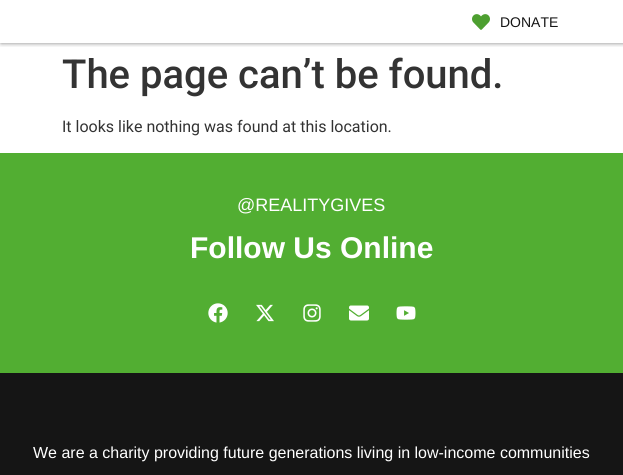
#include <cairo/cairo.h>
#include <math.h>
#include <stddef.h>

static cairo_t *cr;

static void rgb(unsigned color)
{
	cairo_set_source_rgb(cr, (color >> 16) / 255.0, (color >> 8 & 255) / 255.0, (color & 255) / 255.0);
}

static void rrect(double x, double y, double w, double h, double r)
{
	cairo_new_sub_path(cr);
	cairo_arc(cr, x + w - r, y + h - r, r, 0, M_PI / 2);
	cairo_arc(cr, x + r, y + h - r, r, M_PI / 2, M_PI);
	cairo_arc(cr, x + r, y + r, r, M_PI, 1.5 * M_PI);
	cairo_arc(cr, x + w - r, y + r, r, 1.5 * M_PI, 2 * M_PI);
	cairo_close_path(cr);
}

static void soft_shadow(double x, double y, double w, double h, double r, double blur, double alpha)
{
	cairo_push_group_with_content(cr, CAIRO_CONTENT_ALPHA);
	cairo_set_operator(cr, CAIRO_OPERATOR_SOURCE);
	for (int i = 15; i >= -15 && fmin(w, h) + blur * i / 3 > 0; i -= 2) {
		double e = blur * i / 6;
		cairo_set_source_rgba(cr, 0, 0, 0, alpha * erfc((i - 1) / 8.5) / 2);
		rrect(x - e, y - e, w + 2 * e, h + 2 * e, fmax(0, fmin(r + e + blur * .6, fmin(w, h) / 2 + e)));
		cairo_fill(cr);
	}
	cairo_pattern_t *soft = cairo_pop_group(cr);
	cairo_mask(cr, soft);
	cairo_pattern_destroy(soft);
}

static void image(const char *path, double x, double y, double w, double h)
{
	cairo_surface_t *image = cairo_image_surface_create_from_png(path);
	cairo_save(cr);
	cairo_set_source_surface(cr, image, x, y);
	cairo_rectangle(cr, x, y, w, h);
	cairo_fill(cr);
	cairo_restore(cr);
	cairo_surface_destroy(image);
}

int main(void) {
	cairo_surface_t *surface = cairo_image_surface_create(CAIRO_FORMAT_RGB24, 623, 475);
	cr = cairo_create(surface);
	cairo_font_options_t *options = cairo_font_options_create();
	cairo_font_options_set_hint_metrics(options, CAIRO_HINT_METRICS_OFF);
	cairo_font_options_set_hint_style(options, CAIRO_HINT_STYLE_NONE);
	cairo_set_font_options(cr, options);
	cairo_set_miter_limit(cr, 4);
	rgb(0xffffff);
	cairo_paint(cr);
	cairo_save(cr);
	cairo_rectangle(cr, 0, 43, 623, 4);
	cairo_clip(cr);
	rgb(0x000000);
	soft_shadow(1, 0, 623, 43, 0, 2.5, 0.5);
	cairo_restore(cr);
	image("img/1.png", 472, 14, 18, 16);
	rgb(0x52ae32);
	cairo_rectangle(cr, 0, 153, 623, 220);
	cairo_fill(cr);
	image("img/2.png", 208, 303, 20, 20);
	image("img/3.png", 256, 304, 18, 18);
	image("img/4.png", 303, 304, 18, 18);
	image("img/5.png", 349, 305, 20, 16);
	image("img/6.png", 396, 306, 20, 14);
	rgb(0x151515);
	cairo_rectangle(cr, 0, 373, 623, 102);
	cairo_fill(cr);
	cairo_select_font_face(cr, "Liberation Sans", CAIRO_FONT_SLANT_NORMAL, CAIRO_FONT_WEIGHT_NORMAL);
	cairo_set_font_size(cr, 14);
	cairo_move_to(cr, 500, 27);
	cairo_show_text(cr, "DONATE");
	cairo_select_font_face(cr, "Roboto Medium", CAIRO_FONT_SLANT_NORMAL, CAIRO_FONT_WEIGHT_NORMAL);
	cairo_set_font_size(cr, 40);
	rgb(0x333333);
	cairo_move_to(cr, 62, 88);
	cairo_show_text(cr, "The page can’t be found.");
	cairo_select_font_face(cr, "Roboto", CAIRO_FONT_SLANT_NORMAL, CAIRO_FONT_WEIGHT_NORMAL);
	cairo_set_font_size(cr, 16);
	cairo_move_to(cr, 62, 132);
	cairo_show_text(cr, "It looks like nothing was found at this location.");
	cairo_select_font_face(cr, "Liberation Sans", CAIRO_FONT_SLANT_NORMAL, CAIRO_FONT_WEIGHT_NORMAL);
	cairo_set_font_size(cr, 18);
	rgb(0xffffff);
	cairo_move_to(cr, 237, 211);
	cairo_show_text(cr, "@REALITYGIVES");
	cairo_select_font_face(cr, "Liberation Sans", CAIRO_FONT_SLANT_NORMAL, CAIRO_FONT_WEIGHT_BOLD);
	cairo_set_font_size(cr, 30);
	cairo_move_to(cr, 190, 258);
	cairo_show_text(cr, "Follow Us Online");
	cairo_select_font_face(cr, "Liberation Sans", CAIRO_FONT_SLANT_NORMAL, CAIRO_FONT_WEIGHT_NORMAL);
	cairo_set_font_size(cr, 16);
	cairo_move_to(cr, 33, 458);
	cairo_show_text(cr, "We are a charity providing future generations living in low-income communities");
	cairo_surface_write_to_png(surface, "page.png");
	cairo_font_options_destroy(options);
	cairo_destroy(cr);
	cairo_surface_destroy(surface);
	return 0;
}
